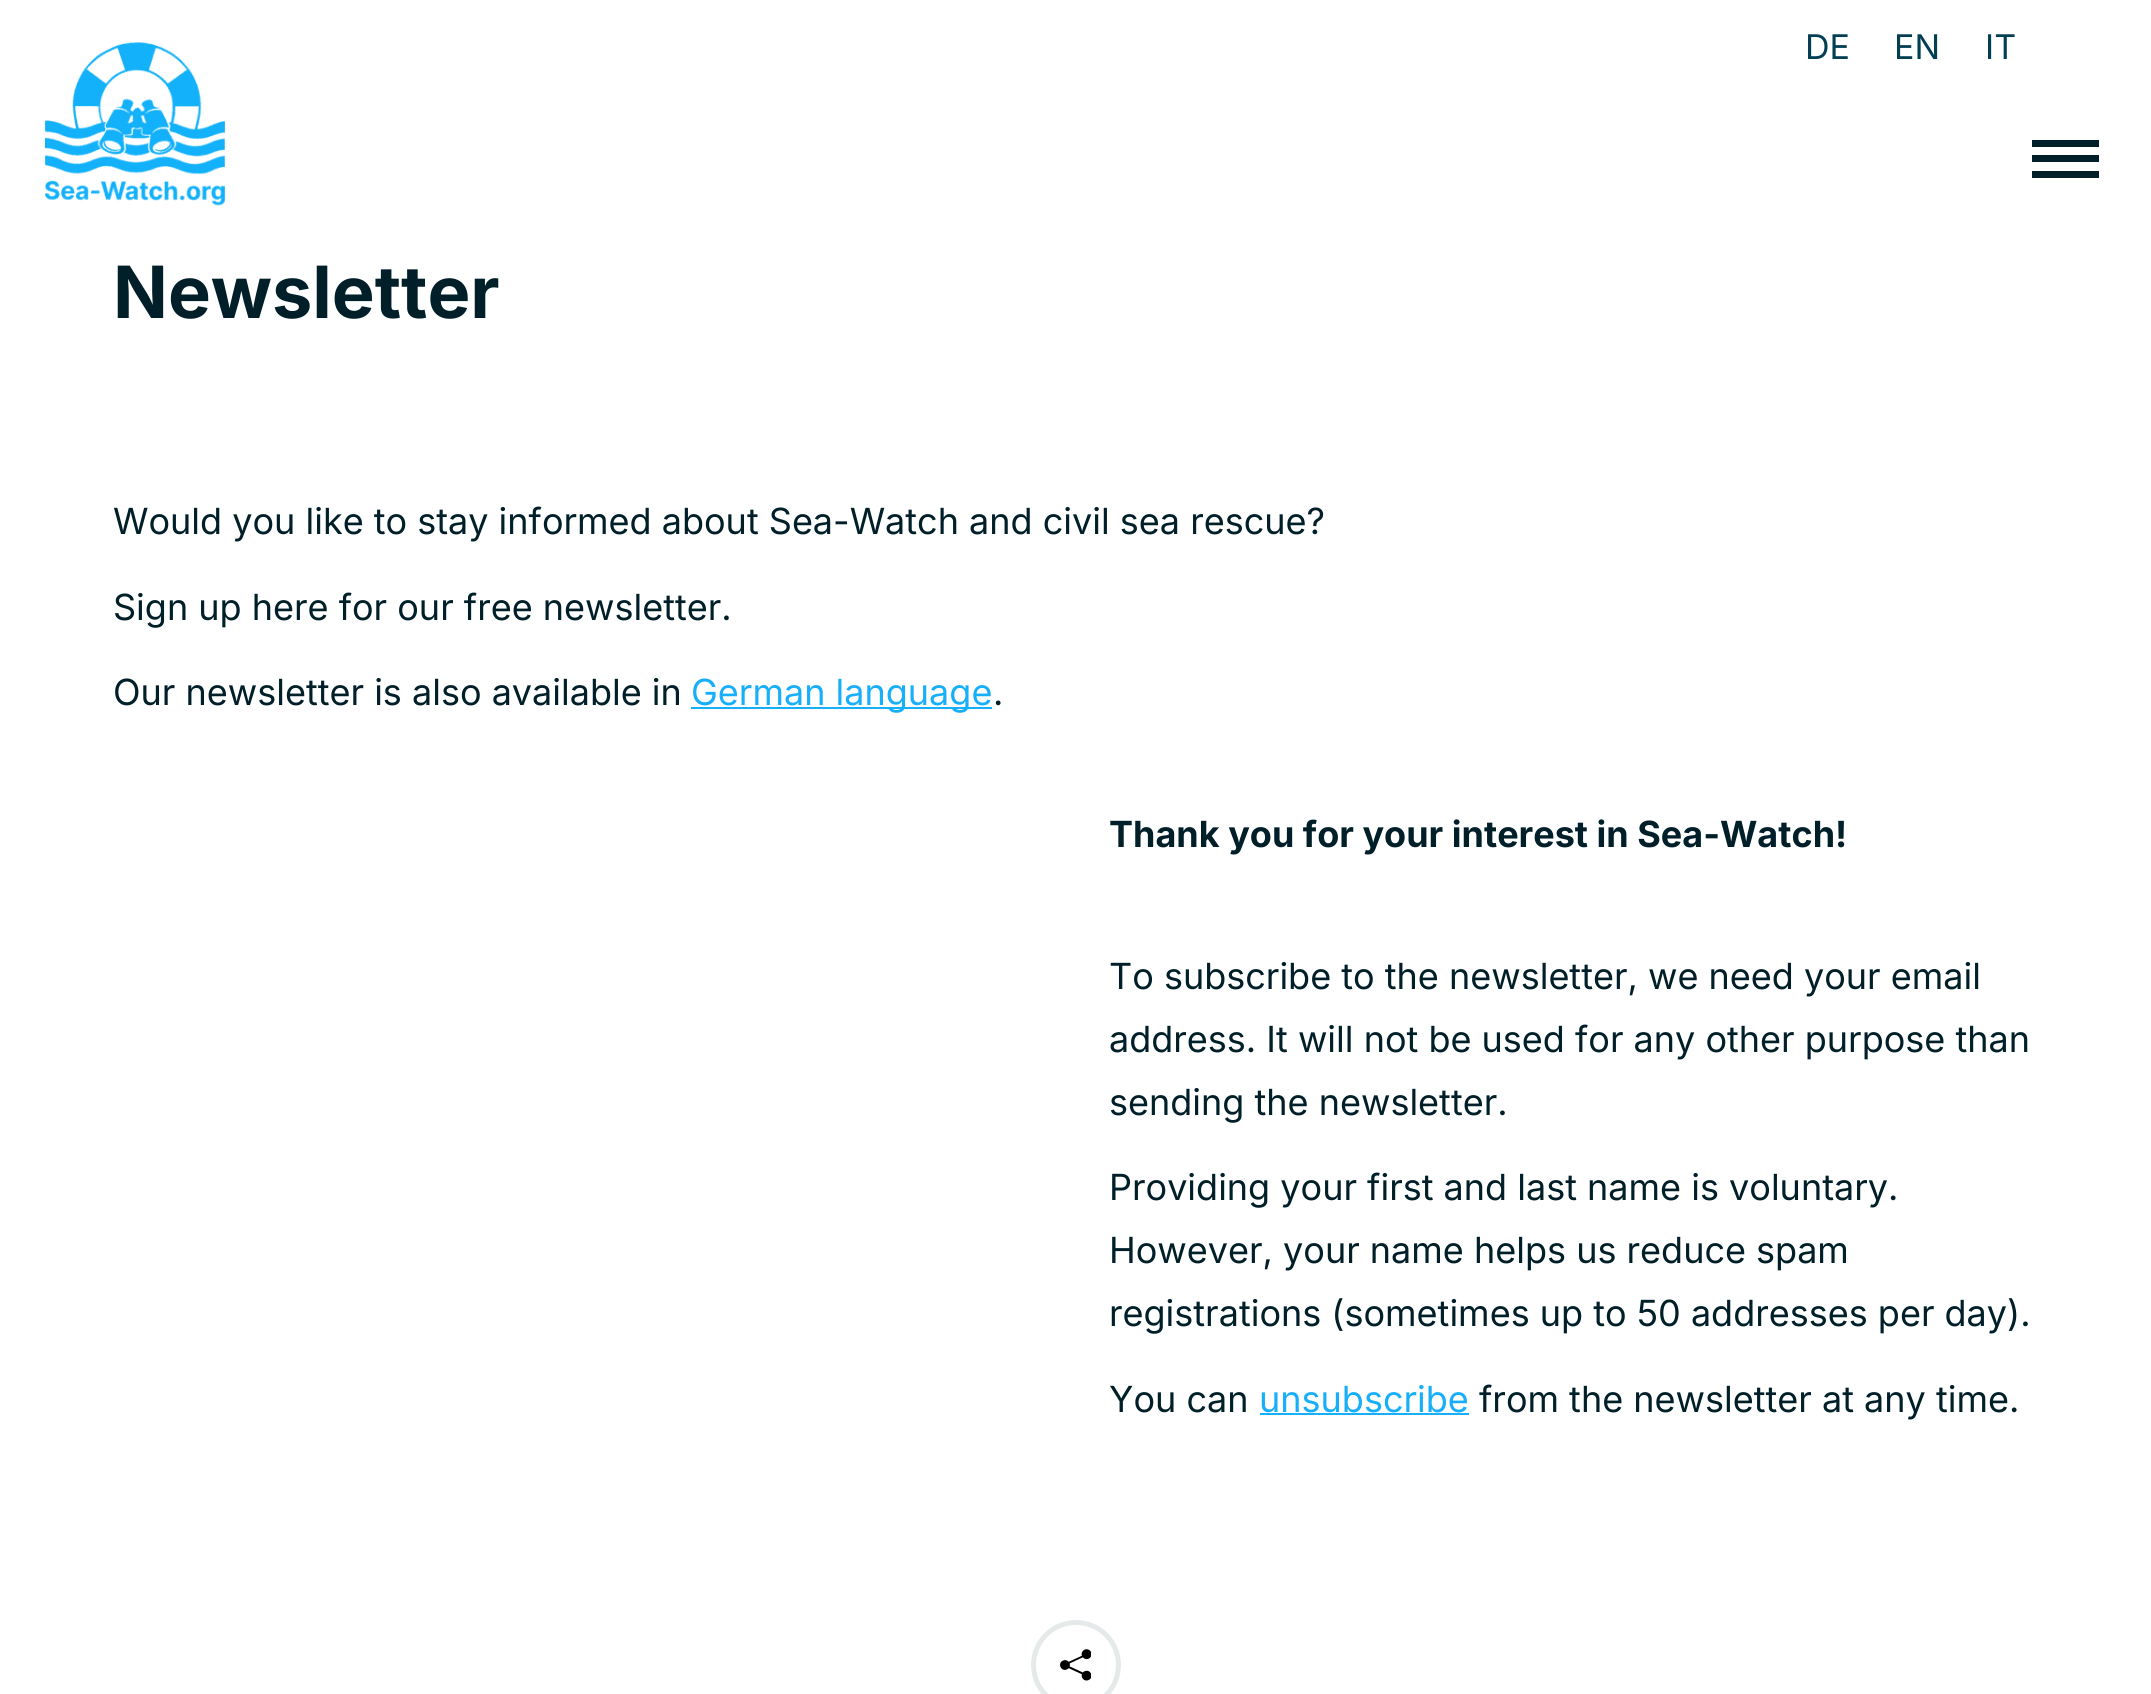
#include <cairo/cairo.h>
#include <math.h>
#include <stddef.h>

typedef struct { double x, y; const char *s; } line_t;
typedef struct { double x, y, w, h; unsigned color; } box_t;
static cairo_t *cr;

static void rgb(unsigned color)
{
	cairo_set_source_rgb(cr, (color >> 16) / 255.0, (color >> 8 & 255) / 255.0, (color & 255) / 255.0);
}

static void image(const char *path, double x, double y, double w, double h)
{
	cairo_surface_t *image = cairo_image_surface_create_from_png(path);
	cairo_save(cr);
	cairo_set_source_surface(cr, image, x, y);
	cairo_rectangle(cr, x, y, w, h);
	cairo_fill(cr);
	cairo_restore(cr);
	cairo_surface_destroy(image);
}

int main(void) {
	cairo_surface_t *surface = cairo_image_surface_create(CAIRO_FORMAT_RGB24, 2151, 1694);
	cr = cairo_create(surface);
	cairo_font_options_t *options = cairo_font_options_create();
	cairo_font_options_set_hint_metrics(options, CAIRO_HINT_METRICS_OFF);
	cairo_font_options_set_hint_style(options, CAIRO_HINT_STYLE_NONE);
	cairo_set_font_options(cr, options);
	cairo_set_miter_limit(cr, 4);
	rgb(0xffffff);
	cairo_paint(cr);
	image("img/1.png", 45, 42, 180, 164);
	{
		static const box_t items[] = {
			{2032, 140, 67, 7, 0x001f29},
			{2032, 155, 67, 7, 0x001f29},
			{2032, 171, 67, 7, 0x001f29},
			{691, 707, 301, 2, 0x17affa},
			{1260, 1413, 209, 2, 0x17affa},
		};
		for (size_t i = 0; i < sizeof items / sizeof *items; i++) {
			rgb(items[i].color);
			cairo_rectangle(cr, items[i].x, items[i].y, items[i].w, items[i].h);
			cairo_fill(cr);
		}
	}
	cairo_arc(cr, 1076, 1665, 42.5, 0, 2 * M_PI);
	rgb(0xe6e9ea);
	cairo_set_line_width(cr, 5);
	cairo_stroke(cr);
	image("img/2.png", 1060, 1649, 31, 32);
	cairo_select_font_face(cr, "Inter", CAIRO_FONT_SLANT_NORMAL, CAIRO_FONT_WEIGHT_NORMAL);
	cairo_set_font_size(cr, 34);
	rgb(0x033e53);
	{
		static const line_t items[] = {
			{1805, 59, "DE"},
			{1894, 59, "EN"},
			{1985, 59, "IT"},
		};
		for (size_t i = 0; i < sizeof items / sizeof *items; i++) {
			cairo_move_to(cr, items[i].x, items[i].y);
			cairo_show_text(cr, items[i].s);
		}
	}
	cairo_select_font_face(cr, "Inter", CAIRO_FONT_SLANT_NORMAL, CAIRO_FONT_WEIGHT_BOLD);
	cairo_set_font_size(cr, 72);
	rgb(0x001f29);
	cairo_move_to(cr, 113, 318);
	cairo_show_text(cr, "Newsletter");
	cairo_select_font_face(cr, "Inter", CAIRO_FONT_SLANT_NORMAL, CAIRO_FONT_WEIGHT_NORMAL);
	cairo_set_font_size(cr, 36);
	{
		static const line_t items[] = {
			{113, 534, "Would you like to stay informed about Sea-Watch and civil sea rescue?"},
			{113, 620, "Sign up here for our free newsletter."},
			{113, 705, "Our newsletter is also available in"},
		};
		for (size_t i = 0; i < sizeof items / sizeof *items; i++) {
			cairo_move_to(cr, items[i].x, items[i].y);
			cairo_show_text(cr, items[i].s);
		}
	}
	rgb(0x17affa);
	cairo_move_to(cr, 691, 705);
	cairo_show_text(cr, "German language");
	rgb(0x001f29);
	cairo_move_to(cr, 993, 705);
	cairo_show_text(cr, ".");
	cairo_select_font_face(cr, "Inter", CAIRO_FONT_SLANT_NORMAL, CAIRO_FONT_WEIGHT_BOLD);
	cairo_move_to(cr, 1109, 847);
	cairo_show_text(cr, "Thank you for your interest in Sea-Watch!");
	cairo_select_font_face(cr, "Inter", CAIRO_FONT_SLANT_NORMAL, CAIRO_FONT_WEIGHT_NORMAL);
	{
		static const line_t items[] = {
			{1109, 989, "To subscribe to the newsletter, we need your email"},
			{1109, 1052, "address. It will not be used for any other purpose than"},
			{1109, 1115, "sending the newsletter."},
			{1109, 1200, "Providing your first and last name is voluntary."},
			{1109, 1263, "However, your name helps us reduce spam"},
			{1109, 1326, "registrations (sometimes up to 50 addresses per day)."},
			{1109, 1412, "You can"},
		};
		for (size_t i = 0; i < sizeof items / sizeof *items; i++) {
			cairo_move_to(cr, items[i].x, items[i].y);
			cairo_show_text(cr, items[i].s);
		}
	}
	rgb(0x17affa);
	cairo_move_to(cr, 1259, 1412);
	cairo_show_text(cr, "unsubscribe");
	rgb(0x001f29);
	cairo_move_to(cr, 1479, 1412);
	cairo_show_text(cr, "from the newsletter at any time.");
	cairo_surface_write_to_png(surface, "page.png");
	cairo_font_options_destroy(options);
	cairo_destroy(cr);
	cairo_surface_destroy(surface);
	return 0;
}
